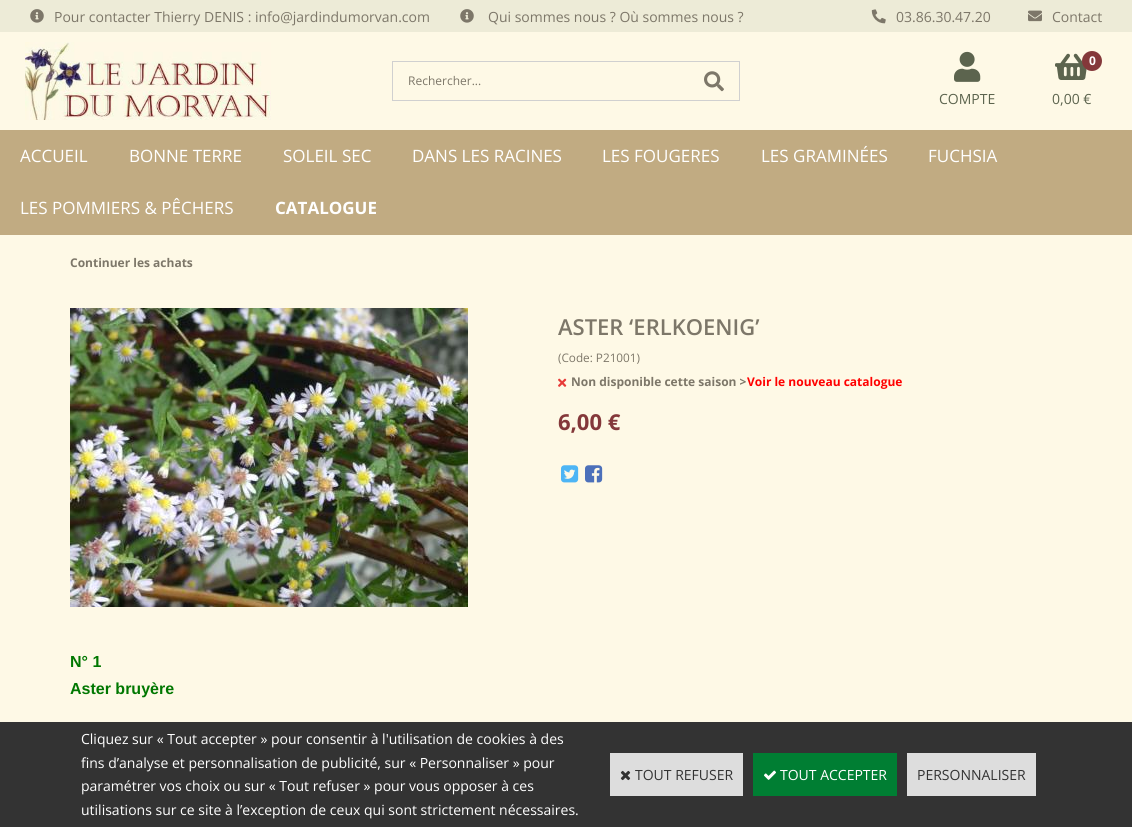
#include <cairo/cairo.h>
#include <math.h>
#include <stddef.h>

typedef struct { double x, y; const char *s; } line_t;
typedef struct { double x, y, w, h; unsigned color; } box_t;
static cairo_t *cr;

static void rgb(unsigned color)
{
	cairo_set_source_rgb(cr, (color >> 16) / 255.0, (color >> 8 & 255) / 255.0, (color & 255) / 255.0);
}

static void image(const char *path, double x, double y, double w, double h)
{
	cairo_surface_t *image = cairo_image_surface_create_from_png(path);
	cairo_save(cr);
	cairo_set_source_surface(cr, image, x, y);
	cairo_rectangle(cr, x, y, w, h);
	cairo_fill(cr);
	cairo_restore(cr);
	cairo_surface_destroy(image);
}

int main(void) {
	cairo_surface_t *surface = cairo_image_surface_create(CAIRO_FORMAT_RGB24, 1132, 827);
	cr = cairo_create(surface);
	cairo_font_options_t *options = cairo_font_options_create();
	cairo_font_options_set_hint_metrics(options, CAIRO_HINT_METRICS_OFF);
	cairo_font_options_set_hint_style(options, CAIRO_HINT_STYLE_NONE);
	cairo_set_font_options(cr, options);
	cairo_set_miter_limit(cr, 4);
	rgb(0xfef9e6);
	cairo_paint(cr);
	rgb(0xedebd7);
	cairo_rectangle(cr, 0, 0, 1132, 32);
	cairo_fill(cr);
	image("img/1.png", 30, 9, 14, 14);
	image("img/1.png", 460, 9, 14, 14);
	image("img/2.png", 871, 9, 15, 15);
	image("img/3.png", 1028, 10, 14, 12);
	image("img/4.png", 25, 42, 246, 78);
	{
		static const box_t items[] = {
			{392, 61, 348, 1, 0xd0d0d0},
			{392, 100, 297, 1, 0xd0d0d0},
			{392, 61, 1, 40, 0xd0d0d0},
			{739, 61, 1, 40, 0xd0d0d0},
			{689, 100, 51, 1, 0xd0d0d0},
		};
		for (size_t i = 0; i < sizeof items / sizeof *items; i++) {
			rgb(items[i].color);
			cairo_rectangle(cr, items[i].x, items[i].y, items[i].w, items[i].h);
			cairo_fill(cr);
		}
	}
	image("img/5.png", 704, 71, 20, 21);
	image("img/6.png", 954, 51, 27, 31);
	image("img/7.png", 1055, 53, 32, 27);
	rgb(0x84383a);
	cairo_arc(cr, 1092, 61, 10, 0, 2 * M_PI);
	cairo_fill(cr);
	rgb(0xc1ab82);
	cairo_rectangle(cr, 0, 130, 1132, 105);
	cairo_fill(cr);
	image("img/8.png", 70, 308, 398, 299);
	image("img/9.png", 558, 378, 9, 9);
	image("img/10.png", 561, 465, 18, 18);
	image("img/11.png", 585, 465, 18, 18);
	rgb(0x333333);
	cairo_rectangle(cr, 0, 722, 1132, 105);
	cairo_fill(cr);
	rgb(0xdddddd);
	cairo_rectangle(cr, 610, 753, 133, 43);
	cairo_fill(cr);
	image("img/12.png", 620, 770, 11, 11);
	rgb(0x007e33);
	cairo_rectangle(cr, 753, 753, 144, 43);
	cairo_fill(cr);
	image("img/13.png", 764, 770, 12, 10);
	rgb(0xdddddd);
	cairo_rectangle(cr, 907, 753, 129, 43);
	cairo_fill(cr);
	cairo_select_font_face(cr, "Open Sans", CAIRO_FONT_SLANT_NORMAL, CAIRO_FONT_WEIGHT_NORMAL);
	cairo_set_font_size(cr, 14);
	rgb(0x7d7769);
	{
		static const line_t items[] = {
			{54, 22, "Pour contacter Thierry DENIS : info@jardindumorvan.com"},
			{488, 22, "Qui sommes nous ? Où sommes nous ?"},
			{896, 22, "03.86.30.47.20"},
			{1052, 22, "Contact"},
		};
		for (size_t i = 0; i < sizeof items / sizeof *items; i++) {
			cairo_move_to(cr, items[i].x, items[i].y);
			cairo_show_text(cr, items[i].s);
		}
	}
	cairo_set_font_size(cr, 12);
	cairo_move_to(cr, 408, 85);
	cairo_show_text(cr, "Rechercher...");
	cairo_set_font_size(cr, 14);
	rgb(0x5c644e);
	cairo_move_to(cr, 939, 104);
	cairo_show_text(cr, "COMPTE");
	cairo_select_font_face(cr, "Open Sans", CAIRO_FONT_SLANT_NORMAL, CAIRO_FONT_WEIGHT_BOLD);
	cairo_set_font_size(cr, 12);
	rgb(0xffffff);
	cairo_move_to(cr, 1089, 65);
	cairo_show_text(cr, "0");
	cairo_select_font_face(cr, "Open Sans", CAIRO_FONT_SLANT_NORMAL, CAIRO_FONT_WEIGHT_NORMAL);
	cairo_set_font_size(cr, 14);
	rgb(0x5c644e);
	cairo_move_to(cr, 1052, 104);
	cairo_show_text(cr, "0,00 €");
	cairo_set_font_size(cr, 17);
	rgb(0xffffff);
	{
		static const line_t items[] = {
			{20, 162, "ACCUEIL"},
			{129, 162, "BONNE TERRE"},
			{283, 162, "SOLEIL SEC"},
			{412, 162, "DANS LES RACINES"},
			{602, 162, "LES FOUGERES"},
			{761, 162, "LES GRAMINÉES"},
			{928, 162, "FUCHSIA"},
			{20, 214, "LES POMMIERS & PÊCHERS"},
		};
		for (size_t i = 0; i < sizeof items / sizeof *items; i++) {
			cairo_move_to(cr, items[i].x, items[i].y);
			cairo_show_text(cr, items[i].s);
		}
	}
	cairo_select_font_face(cr, "Open Sans", CAIRO_FONT_SLANT_NORMAL, CAIRO_FONT_WEIGHT_BOLD);
	cairo_move_to(cr, 275, 214);
	cairo_show_text(cr, "CATALOGUE");
	cairo_set_font_size(cr, 12);
	rgb(0x7d7769);
	cairo_move_to(cr, 70, 267);
	cairo_show_text(cr, "Continuer les achats");
	cairo_select_font_face(cr, "Open Sans SemiBold", CAIRO_FONT_SLANT_NORMAL, CAIRO_FONT_WEIGHT_NORMAL);
	cairo_set_font_size(cr, 22);
	cairo_move_to(cr, 558, 335);
	cairo_show_text(cr, "ASTER ‘ERLKOENIG’");
	cairo_select_font_face(cr, "Open Sans", CAIRO_FONT_SLANT_NORMAL, CAIRO_FONT_WEIGHT_NORMAL);
	cairo_set_font_size(cr, 11.75);
	cairo_move_to(cr, 558, 362);
	cairo_show_text(cr, "(Code: P21001)");
	cairo_select_font_face(cr, "Open Sans", CAIRO_FONT_SLANT_NORMAL, CAIRO_FONT_WEIGHT_BOLD);
	cairo_set_font_size(cr, 12);
	cairo_move_to(cr, 571, 386);
	cairo_show_text(cr, "Non disponible cette saison >");
	rgb(0xff0000);
	cairo_move_to(cr, 747, 386);
	cairo_show_text(cr, "Voir le nouveau catalogue");
	cairo_set_font_size(cr, 22);
	rgb(0x84383a);
	cairo_move_to(cr, 558, 430);
	cairo_show_text(cr, "6,00 €");
	cairo_select_font_face(cr, "Liberation Sans", CAIRO_FONT_SLANT_NORMAL, CAIRO_FONT_WEIGHT_BOLD);
	cairo_set_font_size(cr, 16);
	rgb(0x007700);
	cairo_move_to(cr, 70, 667);
	cairo_show_text(cr, "N° 1");
	cairo_move_to(cr, 70, 694);
	cairo_show_text(cr, "Aster bruyère");
	cairo_select_font_face(cr, "Open Sans", CAIRO_FONT_SLANT_NORMAL, CAIRO_FONT_WEIGHT_NORMAL);
	cairo_set_font_size(cr, 14);
	rgb(0xffffff);
	{
		static const line_t items[] = {
			{81, 744, "Cliquez sur « Tout accepter » pour consentir à l'utilisation de cookies à des"},
			{81, 768, "fins d’analyse et personnalisation de publicité, sur « Personnaliser » pour"},
			{81, 791, "paramétrer vos choix ou sur « Tout refuser » pour vous opposer à ces"},
			{81, 815, "utilisations sur ce site à l’exception de ceux qui sont strictement nécessaires."},
		};
		for (size_t i = 0; i < sizeof items / sizeof *items; i++) {
			cairo_move_to(cr, items[i].x, items[i].y);
			cairo_show_text(cr, items[i].s);
		}
	}
	rgb(0x333333);
	cairo_move_to(cr, 635, 780);
	cairo_show_text(cr, "TOUT REFUSER");
	rgb(0xffffff);
	cairo_move_to(cr, 780, 780);
	cairo_show_text(cr, "TOUT ACCEPTER");
	rgb(0x333333);
	cairo_move_to(cr, 917, 780);
	cairo_show_text(cr, "PERSONNALISER");
	cairo_surface_write_to_png(surface, "page.png");
	cairo_font_options_destroy(options);
	cairo_destroy(cr);
	cairo_surface_destroy(surface);
	return 0;
}
